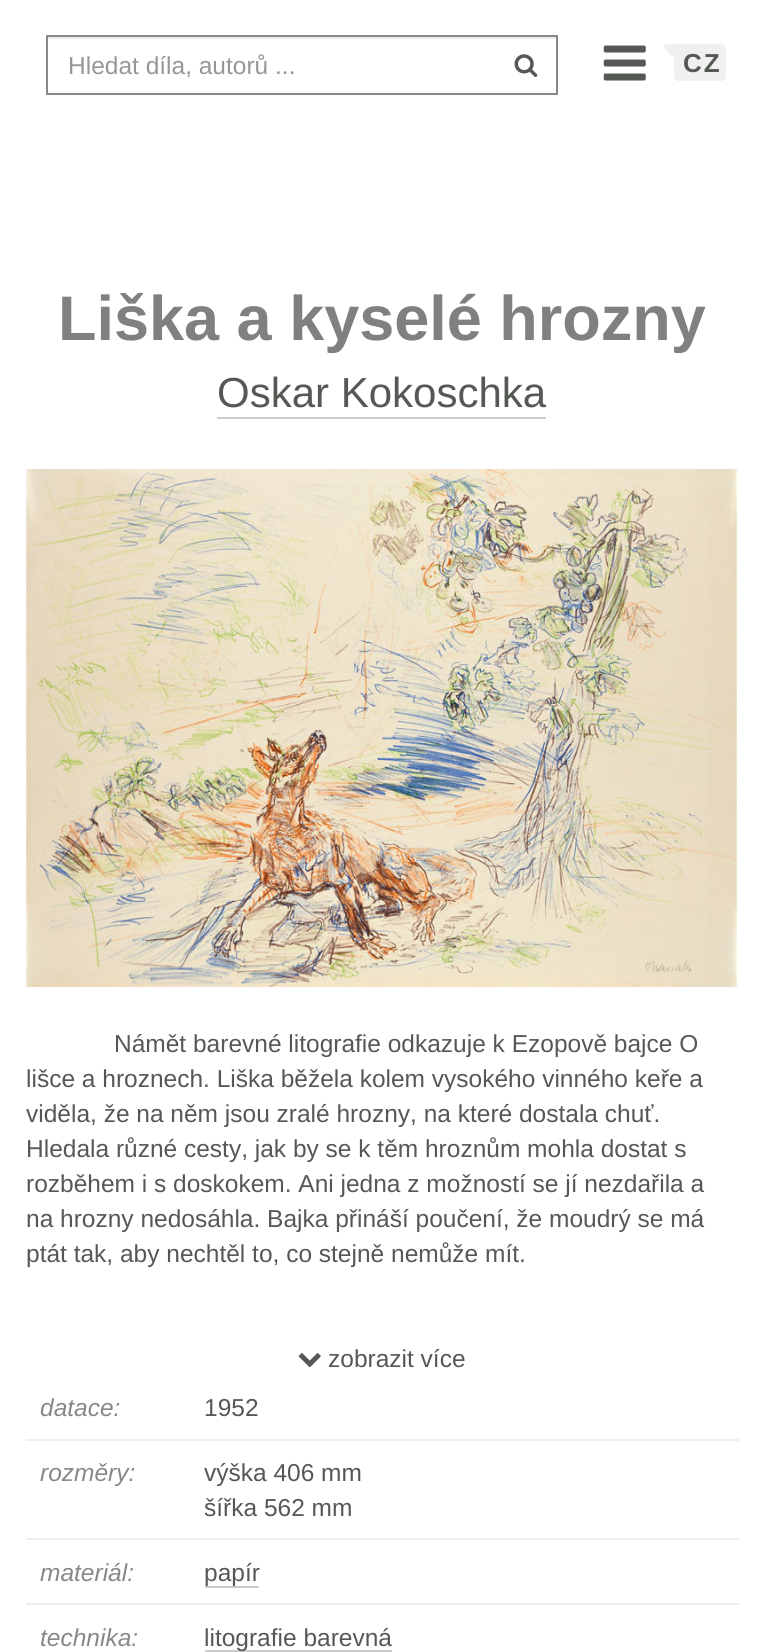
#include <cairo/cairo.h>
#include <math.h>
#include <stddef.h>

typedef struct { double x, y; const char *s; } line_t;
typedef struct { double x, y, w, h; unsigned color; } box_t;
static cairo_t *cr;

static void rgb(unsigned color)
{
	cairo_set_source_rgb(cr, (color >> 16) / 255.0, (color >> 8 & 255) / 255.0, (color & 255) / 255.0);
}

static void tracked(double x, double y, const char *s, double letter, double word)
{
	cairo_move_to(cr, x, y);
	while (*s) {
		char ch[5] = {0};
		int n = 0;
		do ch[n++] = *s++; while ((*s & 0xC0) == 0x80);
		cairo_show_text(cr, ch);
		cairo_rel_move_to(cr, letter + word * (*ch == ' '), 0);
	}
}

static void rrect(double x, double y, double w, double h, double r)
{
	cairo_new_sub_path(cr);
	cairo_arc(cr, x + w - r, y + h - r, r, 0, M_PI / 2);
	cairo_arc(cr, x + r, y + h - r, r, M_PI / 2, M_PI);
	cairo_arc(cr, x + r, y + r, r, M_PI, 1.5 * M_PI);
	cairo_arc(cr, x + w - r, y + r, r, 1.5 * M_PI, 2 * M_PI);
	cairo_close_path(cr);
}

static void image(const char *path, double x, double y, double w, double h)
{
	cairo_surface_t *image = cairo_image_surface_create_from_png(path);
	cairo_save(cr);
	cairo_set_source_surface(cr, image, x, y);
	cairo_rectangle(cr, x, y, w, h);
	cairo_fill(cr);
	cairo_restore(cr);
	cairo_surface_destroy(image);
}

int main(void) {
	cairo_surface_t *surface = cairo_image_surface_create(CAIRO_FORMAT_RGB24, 763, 1652);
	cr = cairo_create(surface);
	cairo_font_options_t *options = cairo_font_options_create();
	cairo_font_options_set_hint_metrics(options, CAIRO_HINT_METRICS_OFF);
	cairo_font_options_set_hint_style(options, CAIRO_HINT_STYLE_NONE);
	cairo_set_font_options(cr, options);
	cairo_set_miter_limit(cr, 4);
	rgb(0xffffff);
	cairo_paint(cr);
	rgb(0xececec);
	cairo_rectangle(cr, 47, 37, 510, 2);
	cairo_fill(cr);
	cairo_rectangle(cr, 47, 36, 510, 58);
	rgb(0x888888);
	cairo_stroke(cr);
	image("img/1.png", 514, 54, 24, 23);
	image("img/2.png", 603, 45, 43, 36);
	rgb(0xf0f0f0);
	rrect(674, 44, 52, 37, 5);
	cairo_fill(cr);
	cairo_new_path(cr);
	cairo_move_to(cr, 684, 44);
	cairo_line_to(cr, 670, 44);
	cairo_curve_to(cr, 664, 44, 662, 46, 665, 49);
	cairo_line_to(cr, 672, 56);
	cairo_curve_to(cr, 675, 59, 682, 61, 688, 61);
	cairo_line_to(cr, 702, 61);
	cairo_curve_to(cr, 708, 61, 710, 59, 707, 56);
	cairo_line_to(cr, 700, 49);
	cairo_curve_to(cr, 697, 46, 690, 44, 684, 44);
	cairo_close_path(cr);
	cairo_fill(cr);
	rgb(0xcccccc);
	cairo_rectangle(cr, 217, 417, 329, 2);
	cairo_fill(cr);
	image("img/3.png", 26, 469, 711, 518);
	image("img/4.png", 298, 1353, 23, 15);
	{
		static const box_t items[] = {
			{26, 1439, 713, 2, 0xeeeeee},
			{26, 1538, 713, 2, 0xeeeeee},
			{205, 1586, 54, 2, 0xcccccc},
			{26, 1603, 713, 2, 0xeeeeee},
			{205, 1650, 187, 2, 0xcccccc},
		};
		for (size_t i = 0; i < sizeof items / sizeof *items; i++) {
			rgb(items[i].color);
			cairo_rectangle(cr, items[i].x, items[i].y, items[i].w, items[i].h);
			cairo_fill(cr);
		}
	}
	cairo_select_font_face(cr, "Liberation Sans", CAIRO_FONT_SLANT_NORMAL, CAIRO_FONT_WEIGHT_NORMAL);
	cairo_set_font_size(cr, 24.5);
	rgb(0x969696);
	cairo_move_to(cr, 68, 74);
	cairo_show_text(cr, "Hledat díla, autorů ...");
	cairo_select_font_face(cr, "Liberation Sans", CAIRO_FONT_SLANT_NORMAL, CAIRO_FONT_WEIGHT_BOLD);
	cairo_set_font_size(cr, 26);
	rgb(0x555954);
	tracked(683, 72, "CZ", 2, 0);
	cairo_set_font_size(cr, 63);
	rgb(0x808080);
	cairo_move_to(cr, 58, 340);
	cairo_show_text(cr, "Liška a kyselé hrozny");
	cairo_select_font_face(cr, "Liberation Sans", CAIRO_FONT_SLANT_NORMAL, CAIRO_FONT_WEIGHT_NORMAL);
	cairo_set_font_size(cr, 42);
	rgb(0x555954);
	cairo_move_to(cr, 217, 407);
	cairo_show_text(cr, "Oskar Kokoschka");
	cairo_set_font_size(cr, 24.5);
	{
		static const line_t items[] = {
			{114, 1052, "Námět barevné litografie odkazuje k Ezopově bajce O"},
			{26, 1087, "lišce a hroznech. Liška běžela kolem vysokého vinného keře a"},
			{26, 1122, "viděla, že na něm jsou zralé hrozny, na které dostala chuť."},
			{26, 1157, "Hledala různé cesty, jak by se k těm hroznům mohla dostat s"},
			{26, 1192, "rozběhem i s doskokem. Ani jedna z možností se jí nezdařila a"},
			{26, 1227, "na hrozny nedosáhla. Bajka přináší poučení, že moudrý se má"},
			{26, 1262, "ptát tak, aby nechtěl to, co stejně nemůže mít."},
			{328, 1367, "zobrazit více"},
		};
		for (size_t i = 0; i < sizeof items / sizeof *items; i++) {
			cairo_move_to(cr, items[i].x, items[i].y);
			cairo_show_text(cr, items[i].s);
		}
	}
	cairo_select_font_face(cr, "Liberation Sans", CAIRO_FONT_SLANT_ITALIC, CAIRO_FONT_WEIGHT_NORMAL);
	rgb(0x888888);
	cairo_move_to(cr, 40, 1416);
	cairo_show_text(cr, "datace:");
	cairo_select_font_face(cr, "Liberation Sans", CAIRO_FONT_SLANT_NORMAL, CAIRO_FONT_WEIGHT_NORMAL);
	rgb(0x555954);
	cairo_move_to(cr, 204, 1416);
	cairo_show_text(cr, "1952");
	cairo_select_font_face(cr, "Liberation Sans", CAIRO_FONT_SLANT_ITALIC, CAIRO_FONT_WEIGHT_NORMAL);
	rgb(0x888888);
	cairo_move_to(cr, 40, 1481);
	cairo_show_text(cr, "rozměry:");
	cairo_select_font_face(cr, "Liberation Sans", CAIRO_FONT_SLANT_NORMAL, CAIRO_FONT_WEIGHT_NORMAL);
	rgb(0x555954);
	cairo_move_to(cr, 204, 1481);
	cairo_show_text(cr, "výška 406 mm");
	cairo_move_to(cr, 204, 1516);
	cairo_show_text(cr, "šířka 562 mm");
	cairo_select_font_face(cr, "Liberation Sans", CAIRO_FONT_SLANT_ITALIC, CAIRO_FONT_WEIGHT_NORMAL);
	rgb(0x888888);
	cairo_move_to(cr, 40, 1581);
	cairo_show_text(cr, "materiál:");
	cairo_select_font_face(cr, "Liberation Sans", CAIRO_FONT_SLANT_NORMAL, CAIRO_FONT_WEIGHT_NORMAL);
	rgb(0x555954);
	cairo_move_to(cr, 204, 1581);
	cairo_show_text(cr, "papír");
	cairo_select_font_face(cr, "Liberation Sans", CAIRO_FONT_SLANT_ITALIC, CAIRO_FONT_WEIGHT_NORMAL);
	rgb(0x888888);
	cairo_move_to(cr, 40, 1646);
	cairo_show_text(cr, "technika:");
	cairo_select_font_face(cr, "Liberation Sans", CAIRO_FONT_SLANT_NORMAL, CAIRO_FONT_WEIGHT_NORMAL);
	rgb(0x555954);
	cairo_move_to(cr, 204, 1646);
	cairo_show_text(cr, "litografie barevná");
	cairo_surface_write_to_png(surface, "page.png");
	cairo_font_options_destroy(options);
	cairo_destroy(cr);
	cairo_surface_destroy(surface);
	return 0;
}
